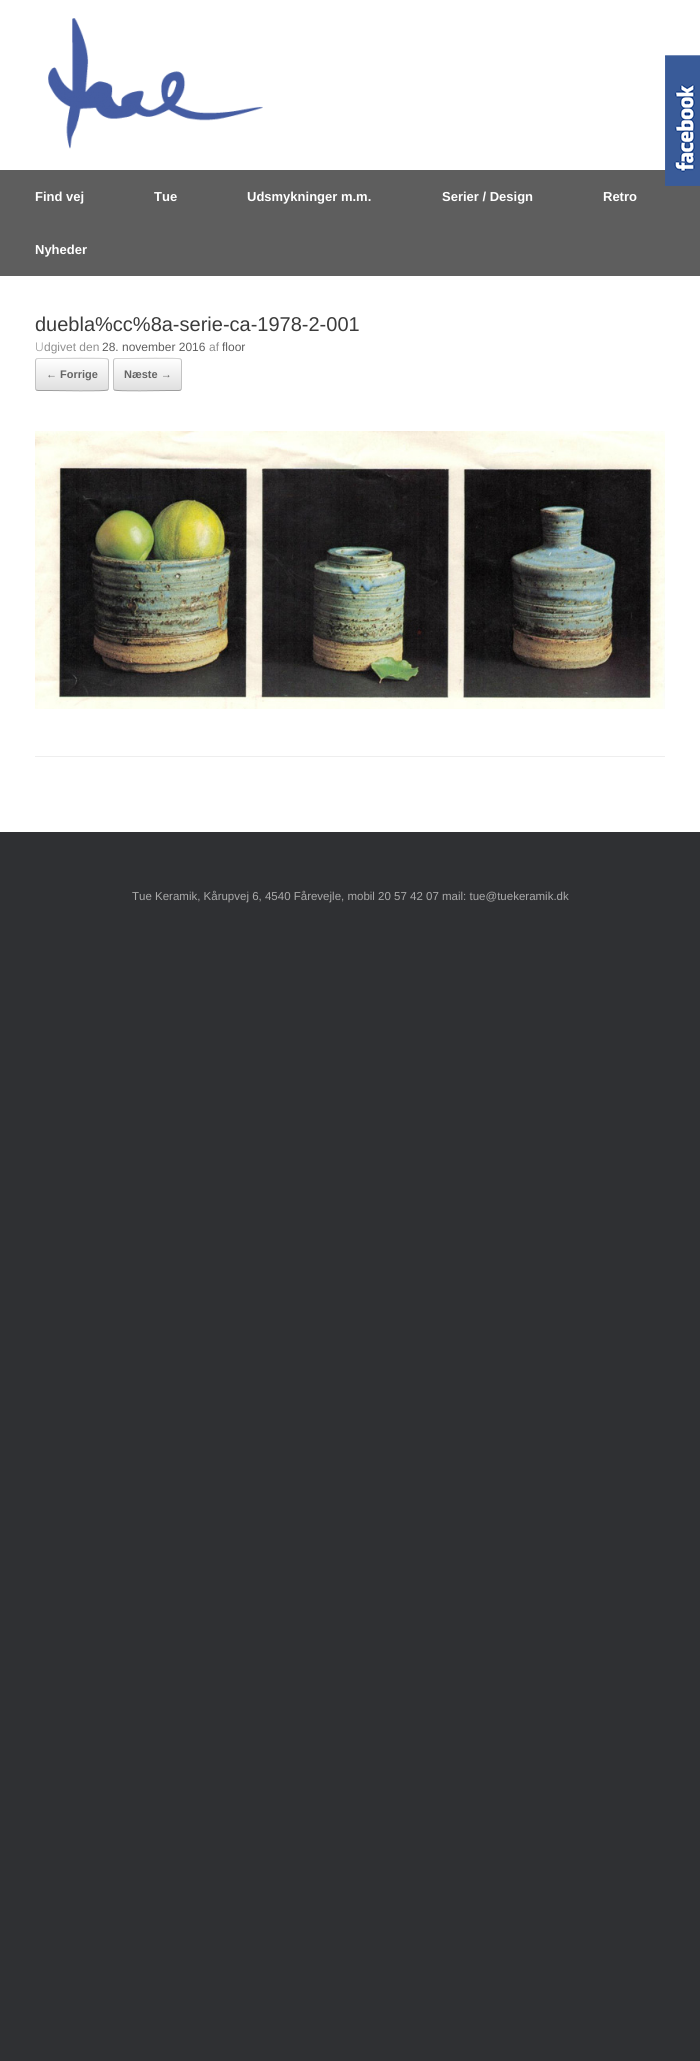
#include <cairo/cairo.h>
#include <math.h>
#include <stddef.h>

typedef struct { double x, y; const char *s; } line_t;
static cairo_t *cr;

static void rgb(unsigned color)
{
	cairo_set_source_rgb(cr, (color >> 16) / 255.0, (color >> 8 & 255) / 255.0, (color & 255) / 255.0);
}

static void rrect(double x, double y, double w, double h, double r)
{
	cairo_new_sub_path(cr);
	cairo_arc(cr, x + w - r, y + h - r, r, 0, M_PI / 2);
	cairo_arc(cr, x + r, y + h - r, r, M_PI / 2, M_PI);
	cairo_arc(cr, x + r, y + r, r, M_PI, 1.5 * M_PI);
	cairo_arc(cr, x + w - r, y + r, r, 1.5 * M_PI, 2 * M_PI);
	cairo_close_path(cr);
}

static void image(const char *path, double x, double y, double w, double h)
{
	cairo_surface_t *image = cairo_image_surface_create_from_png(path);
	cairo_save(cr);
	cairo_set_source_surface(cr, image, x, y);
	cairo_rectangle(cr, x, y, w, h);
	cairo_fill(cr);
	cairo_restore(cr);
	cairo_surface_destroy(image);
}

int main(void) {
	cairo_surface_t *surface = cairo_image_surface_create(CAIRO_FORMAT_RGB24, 700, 2061);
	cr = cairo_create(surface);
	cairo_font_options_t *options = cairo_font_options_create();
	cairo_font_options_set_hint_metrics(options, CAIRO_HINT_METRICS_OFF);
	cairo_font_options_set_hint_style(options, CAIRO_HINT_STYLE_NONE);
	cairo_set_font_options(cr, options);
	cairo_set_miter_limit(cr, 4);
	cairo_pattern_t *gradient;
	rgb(0x2f3033);
	cairo_paint(cr);
	rgb(0xffffff);
	cairo_rectangle(cr, 0, 0, 700, 170);
	cairo_fill(cr);
	rgb(0x5e5e5e);
	cairo_rectangle(cr, 0, 170, 700, 106);
	cairo_fill(cr);
	image("img/1.png", 665, 55, 35, 131);
	image("img/2.png", 48, 18, 215, 131);
	rgb(0xffffff);
	cairo_rectangle(cr, 0, 276, 700, 556);
	cairo_fill(cr);
	rgb(0xeeeeee);
	cairo_rectangle(cr, 35, 756, 630, 1);
	cairo_fill(cr);
	cairo_save(cr);
	rrect(35, 358, 74, 33, 3);
	cairo_clip(cr);
	gradient = cairo_pattern_create_linear(36, 359, 36, 328);
	cairo_pattern_add_color_stop_rgba(gradient, 0, 0.875, 0.875, 0.875, 1);
	cairo_pattern_add_color_stop_rgba(gradient, 1, 1, 1, 1, 1);
	cairo_set_source(cr, gradient);
	cairo_pattern_destroy(gradient);
	cairo_rectangle(cr, 35, 358, 74, 1);
	cairo_fill(cr);
	gradient = cairo_pattern_create_linear(36, 390, 36, 359);
	cairo_pattern_add_color_stop_rgba(gradient, 0, 0.875, 0.875, 0.875, 1);
	cairo_pattern_add_color_stop_rgba(gradient, 1, 1, 1, 1, 1);
	cairo_set_source(cr, gradient);
	cairo_pattern_destroy(gradient);
	cairo_rectangle(cr, 35, 359, 74, 31);
	cairo_fill(cr);
	cairo_restore(cr);
	cairo_new_path(cr);
	cairo_move_to(cr, 36, 359);
	cairo_line_to(cr, 38, 358.5);
	cairo_line_to(cr, 49.5, 358.5);
	cairo_curve_to(cr, 56, 358.5, 105.5, 357.5, 107.5, 359);
	cairo_line_to(cr, 108, 359);
	rgb(0xd2d2d2);
	cairo_set_line_width(cr, 1);
	cairo_stroke(cr);
	cairo_new_path(cr);
	cairo_move_to(cr, 108, 359);
	cairo_curve_to(cr, 108, 359.5, 108.5, 360.5, 108.5, 361);
	cairo_line_to(cr, 108.5, 388);
	cairo_curve_to(cr, 108.5, 388.5, 108, 389.5, 108, 390);
	rgb(0xc3c3c3);
	cairo_stroke(cr);
	cairo_new_path(cr);
	cairo_move_to(cr, 108, 390);
	cairo_line_to(cr, 107.5, 390);
	cairo_curve_to(cr, 105.5, 391.5, 56, 390.5, 49.5, 390.5);
	cairo_line_to(cr, 38, 390.5);
	cairo_line_to(cr, 36, 390);
	rgb(0x9f9f9f);
	cairo_stroke(cr);
	cairo_new_path(cr);
	cairo_move_to(cr, 36, 390);
	cairo_curve_to(cr, 36, 389.5, 35.5, 388.5, 35.5, 388);
	cairo_line_to(cr, 35.5, 361);
	cairo_curve_to(cr, 35.5, 360.5, 36, 359.5, 36, 359);
	rgb(0xc3c3c3);
	cairo_stroke(cr);
	cairo_save(cr);
	rrect(113, 358, 69, 33, 3);
	cairo_clip(cr);
	gradient = cairo_pattern_create_linear(114, 359, 114, 328);
	cairo_pattern_add_color_stop_rgba(gradient, 0, 0.875, 0.875, 0.875, 1);
	cairo_pattern_add_color_stop_rgba(gradient, 1, 1, 1, 1, 1);
	cairo_set_source(cr, gradient);
	cairo_pattern_destroy(gradient);
	cairo_rectangle(cr, 113, 358, 69, 1);
	cairo_fill(cr);
	gradient = cairo_pattern_create_linear(114, 390, 114, 359);
	cairo_pattern_add_color_stop_rgba(gradient, 0, 0.875, 0.875, 0.875, 1);
	cairo_pattern_add_color_stop_rgba(gradient, 1, 1, 1, 1, 1);
	cairo_set_source(cr, gradient);
	cairo_pattern_destroy(gradient);
	cairo_rectangle(cr, 113, 359, 69, 31);
	cairo_fill(cr);
	cairo_restore(cr);
	cairo_new_path(cr);
	cairo_move_to(cr, 114, 359);
	cairo_line_to(cr, 116, 358.5);
	cairo_line_to(cr, 126.5, 358.5);
	cairo_curve_to(cr, 132.5, 358.5, 178.5, 357.5, 180.5, 359);
	cairo_line_to(cr, 181, 359);
	rgb(0xd2d2d2);
	cairo_stroke(cr);
	cairo_new_path(cr);
	cairo_move_to(cr, 181, 359);
	cairo_curve_to(cr, 181, 359.5, 181.5, 360.5, 181.5, 361);
	cairo_line_to(cr, 181.5, 388);
	cairo_curve_to(cr, 181.5, 388.5, 181, 389.5, 181, 390);
	rgb(0xc3c3c3);
	cairo_stroke(cr);
	cairo_new_path(cr);
	cairo_move_to(cr, 181, 390);
	cairo_line_to(cr, 179, 390.5);
	cairo_line_to(cr, 168.5, 390.5);
	cairo_curve_to(cr, 162.5, 390.5, 116.5, 391.5, 114.5, 390);
	cairo_line_to(cr, 114, 390);
	rgb(0x9f9f9f);
	cairo_stroke(cr);
	cairo_new_path(cr);
	cairo_move_to(cr, 114, 390);
	cairo_curve_to(cr, 114, 389.5, 113.5, 388.5, 113.5, 388);
	cairo_line_to(cr, 113.5, 361);
	cairo_curve_to(cr, 113.5, 360.5, 114, 359.5, 114, 359);
	rgb(0xc3c3c3);
	cairo_stroke(cr);
	image("img/3.png", 35, 431, 630, 278);
	cairo_select_font_face(cr, "Liberation Sans", CAIRO_FONT_SLANT_NORMAL, CAIRO_FONT_WEIGHT_BOLD);
	cairo_set_font_size(cr, 13);
	rgb(0xffffff);
	{
		static const line_t items[] = {
			{35, 201, "Find vej"},
			{154, 201, "Tue"},
			{247, 201, "Udsmykninger m.m."},
			{442, 201, "Serier / Design"},
			{603, 201, "Retro"},
			{35, 254, "Nyheder"},
		};
		for (size_t i = 0; i < sizeof items / sizeof *items; i++) {
			cairo_move_to(cr, items[i].x, items[i].y);
			cairo_show_text(cr, items[i].s);
		}
	}
	cairo_select_font_face(cr, "Liberation Sans", CAIRO_FONT_SLANT_NORMAL, CAIRO_FONT_WEIGHT_NORMAL);
	cairo_set_font_size(cr, 20);
	rgb(0x3b3b3b);
	cairo_move_to(cr, 35, 331);
	cairo_show_text(cr, "duebla%cc%8a-serie-ca-1978-2-001");
	cairo_select_font_face(cr, "Noto Sans Light", CAIRO_FONT_SLANT_NORMAL, CAIRO_FONT_WEIGHT_NORMAL);
	cairo_set_font_size(cr, 12);
	rgb(0x8f8f8f);
	cairo_move_to(cr, 35, 351);
	cairo_show_text(cr, "U");
	cairo_select_font_face(cr, "Liberation Sans", CAIRO_FONT_SLANT_NORMAL, CAIRO_FONT_WEIGHT_NORMAL);
	cairo_move_to(cr, 44, 351);
	cairo_show_text(cr, "dgivet den");
	rgb(0x5e5e5e);
	cairo_move_to(cr, 102, 351);
	cairo_show_text(cr, "28. november 2016");
	rgb(0x8f8f8f);
	cairo_move_to(cr, 209, 351);
	cairo_show_text(cr, "af");
	rgb(0x5e5e5e);
	cairo_move_to(cr, 222, 351);
	cairo_show_text(cr, "floor");
	cairo_select_font_face(cr, "Liberation Sans", CAIRO_FONT_SLANT_NORMAL, CAIRO_FONT_WEIGHT_BOLD);
	cairo_set_font_size(cr, 11);
	rgb(0x646464);
	cairo_move_to(cr, 46, 378);
	cairo_show_text(cr, "← Forrige");
	cairo_move_to(cr, 124, 378);
	cairo_show_text(cr, "Næste →");
	cairo_select_font_face(cr, "Liberation Sans", CAIRO_FONT_SLANT_NORMAL, CAIRO_FONT_WEIGHT_NORMAL);
	cairo_set_font_size(cr, 11.5);
	rgb(0xaaaaaa);
	cairo_move_to(cr, 132, 900);
	cairo_show_text(cr, "Tue Keramik, Kårupvej 6, 4540 Fårevejle, mobil 20 57 42 07 mail: tue@tuekeramik.dk");
	cairo_surface_write_to_png(surface, "page.png");
	cairo_font_options_destroy(options);
	cairo_destroy(cr);
	cairo_surface_destroy(surface);
	return 0;
}
